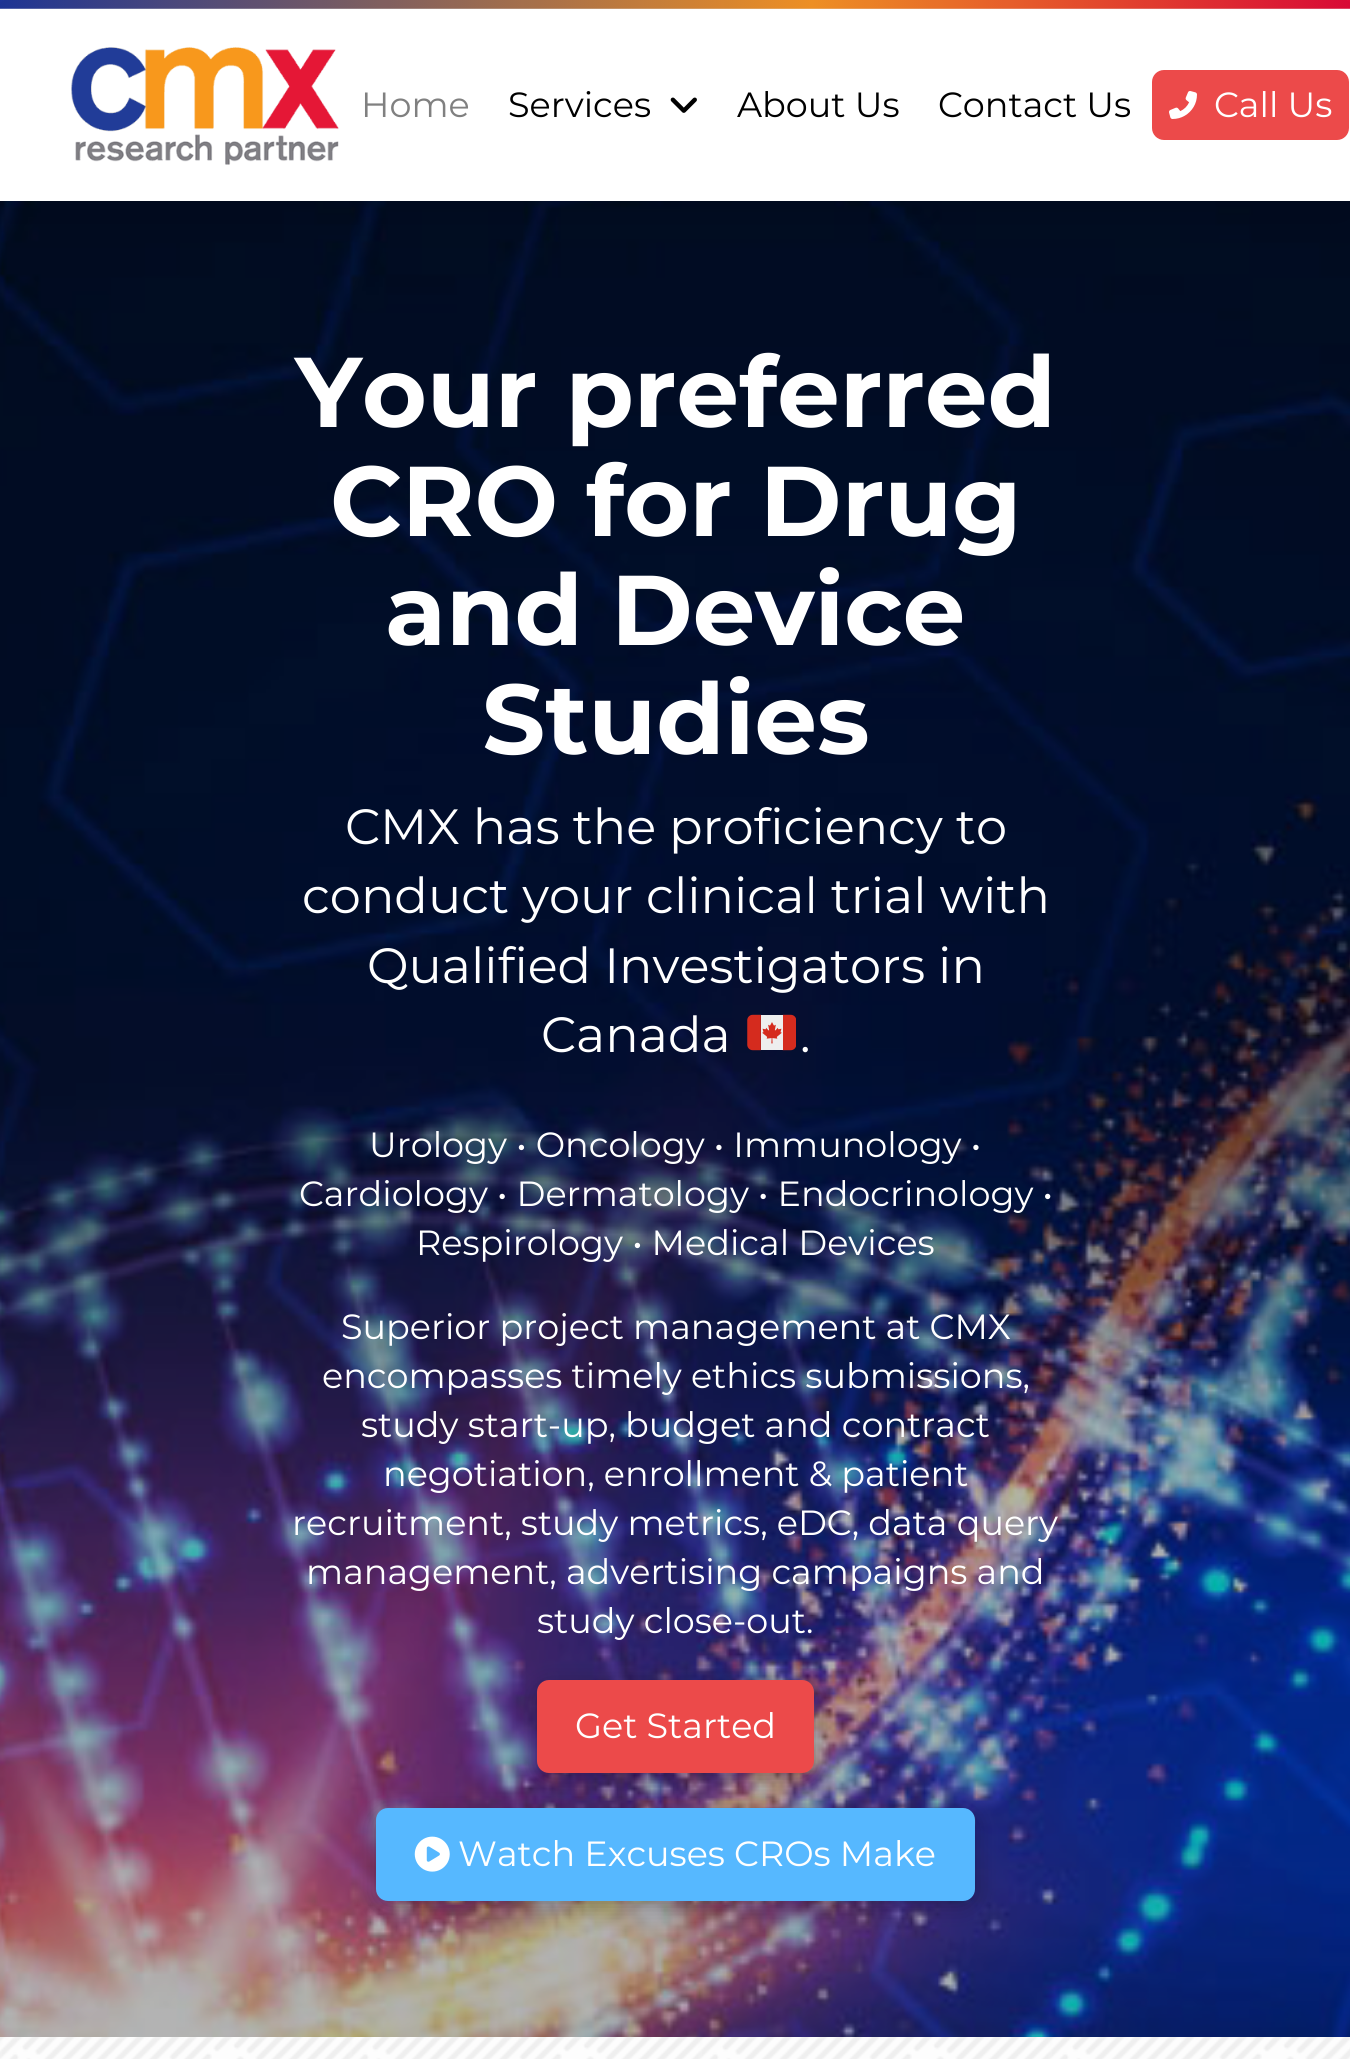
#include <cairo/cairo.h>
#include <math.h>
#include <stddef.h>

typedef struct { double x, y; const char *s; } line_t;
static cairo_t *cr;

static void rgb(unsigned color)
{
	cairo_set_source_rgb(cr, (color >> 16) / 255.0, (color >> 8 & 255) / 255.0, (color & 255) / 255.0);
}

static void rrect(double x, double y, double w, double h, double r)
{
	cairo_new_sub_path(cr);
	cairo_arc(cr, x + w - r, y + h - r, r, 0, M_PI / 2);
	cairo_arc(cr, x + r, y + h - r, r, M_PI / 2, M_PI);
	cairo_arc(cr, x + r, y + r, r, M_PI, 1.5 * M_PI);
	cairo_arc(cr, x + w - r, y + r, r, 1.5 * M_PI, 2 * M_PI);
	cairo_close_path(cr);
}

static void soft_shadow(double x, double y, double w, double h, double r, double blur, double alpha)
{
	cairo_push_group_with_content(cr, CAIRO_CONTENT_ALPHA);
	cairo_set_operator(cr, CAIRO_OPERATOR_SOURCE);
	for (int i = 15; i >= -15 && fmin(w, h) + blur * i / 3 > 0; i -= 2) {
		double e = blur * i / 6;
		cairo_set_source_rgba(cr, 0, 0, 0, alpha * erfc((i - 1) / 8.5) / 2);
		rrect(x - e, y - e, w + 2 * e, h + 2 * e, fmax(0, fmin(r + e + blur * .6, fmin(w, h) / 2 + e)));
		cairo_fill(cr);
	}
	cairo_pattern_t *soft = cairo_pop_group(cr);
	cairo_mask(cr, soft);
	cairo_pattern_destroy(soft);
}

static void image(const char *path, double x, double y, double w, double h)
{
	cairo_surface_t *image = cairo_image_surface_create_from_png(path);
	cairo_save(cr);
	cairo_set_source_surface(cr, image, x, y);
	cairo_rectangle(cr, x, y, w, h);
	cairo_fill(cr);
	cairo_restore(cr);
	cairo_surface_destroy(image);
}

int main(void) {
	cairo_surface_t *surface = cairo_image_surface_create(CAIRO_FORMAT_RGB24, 1350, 2059);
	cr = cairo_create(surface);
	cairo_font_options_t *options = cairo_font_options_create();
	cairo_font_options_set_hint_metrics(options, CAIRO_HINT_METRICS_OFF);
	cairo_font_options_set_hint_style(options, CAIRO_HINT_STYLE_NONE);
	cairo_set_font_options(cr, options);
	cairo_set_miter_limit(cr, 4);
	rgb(0xffffff);
	cairo_paint(cr);
	image("img/1.png", 0, 0, 1350, 9);
	image("img/5.png", 0, 201, 1350, 1836);
	rgb(0x000000);
	soft_shadow(0, 14, 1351, 193, 0, 35, 0.15);
	rgb(0xffffff);
	cairo_rectangle(cr, 0, 9, 1350, 192);
	cairo_fill(cr);
	image("img/2.png", 71, 47, 268, 118);
	image("img/3.png", 670, 97, 27, 16);
	rgb(0xec4a4a);
	rrect(1152, 70, 197, 70, 12);
	cairo_fill(cr);
	image("img/4.png", 1169, 91, 28, 28);
	image("img/6.png", 747, 1014, 49, 37);
	rgb(0x000000);
	soft_shadow(537, 1685, 277, 93, 12, 11.5, 0.25);
	rgb(0xec4a4a);
	rrect(537, 1680, 277, 93, 12);
	cairo_fill(cr);
	rgb(0x000000);
	soft_shadow(376, 1813, 599, 93, 12, 11.5, 0.25);
	rgb(0x56b8ff);
	rrect(376, 1808, 599, 93, 12);
	cairo_fill(cr);
	image("img/7.png", 414, 1836, 36, 36);
	image("img/8.png", 0, 2037, 1350, 22);
	cairo_select_font_face(cr, "Montserrat", CAIRO_FONT_SLANT_NORMAL, CAIRO_FONT_WEIGHT_NORMAL);
	cairo_set_font_size(cr, 35);
	rgb(0x808080);
	cairo_move_to(cr, 361, 117);
	cairo_show_text(cr, "Home");
	rgb(0x000000);
	{
		static const line_t items[] = {
			{508, 117, "Services"},
			{737, 117, "About Us"},
			{938, 117, "Contact Us"},
		};
		for (size_t i = 0; i < sizeof items / sizeof *items; i++) {
			cairo_move_to(cr, items[i].x, items[i].y);
			cairo_show_text(cr, items[i].s);
		}
	}
	rgb(0xffffff);
	cairo_move_to(cr, 1214, 117);
	cairo_show_text(cr, "Call Us");
	cairo_select_font_face(cr, "Montserrat", CAIRO_FONT_SLANT_NORMAL, CAIRO_FONT_WEIGHT_BOLD);
	cairo_set_font_size(cr, 99);
	{
		static const line_t items[] = {
			{295, 427, "Your preferred"},
			{330, 536, "CRO for Drug"},
			{385, 645, "and Device"},
			{482, 754, "Studies"},
		};
		for (size_t i = 0; i < sizeof items / sizeof *items; i++) {
			cairo_move_to(cr, items[i].x, items[i].y);
			cairo_show_text(cr, items[i].s);
		}
	}
	cairo_select_font_face(cr, "Montserrat", CAIRO_FONT_SLANT_NORMAL, CAIRO_FONT_WEIGHT_NORMAL);
	cairo_set_font_size(cr, 49.5);
	{
		static const line_t items[] = {
			{345, 844, "CMX has the proficiency to"},
			{302, 913, "conduct your clinical trial with"},
			{367, 983, "Qualified Investigators in"},
			{541, 1052, "Canada"},
			{800, 1052, "."},
		};
		for (size_t i = 0; i < sizeof items / sizeof *items; i++) {
			cairo_move_to(cr, items[i].x, items[i].y);
			cairo_show_text(cr, items[i].s);
		}
	}
	cairo_set_font_size(cr, 35);
	{
		static const line_t items[] = {
			{369, 1157, "Urology • Oncology • Immunology •"},
			{299, 1206, "Cardiology • Dermatology • Endocrinology •"},
			{416, 1255, "Respirology • Medical Devices"},
			{341, 1339, "Superior project management at CMX"},
			{322, 1388, "encompasses timely ethics submissions,"},
			{361, 1437, "study start-up, budget and contract"},
			{383, 1486, "negotiation, enrollment & patient"},
			{292, 1535, "recruitment, study metrics, eDC, data query"},
			{306, 1584, "management, advertising campaigns and"},
			{537, 1633, "study close-out."},
			{575, 1738, "Get Started"},
			{458, 1866, "Watch Excuses CROs Make"},
		};
		for (size_t i = 0; i < sizeof items / sizeof *items; i++) {
			cairo_move_to(cr, items[i].x, items[i].y);
			cairo_show_text(cr, items[i].s);
		}
	}
	cairo_surface_write_to_png(surface, "page.png");
	cairo_font_options_destroy(options);
	cairo_destroy(cr);
	cairo_surface_destroy(surface);
	return 0;
}
